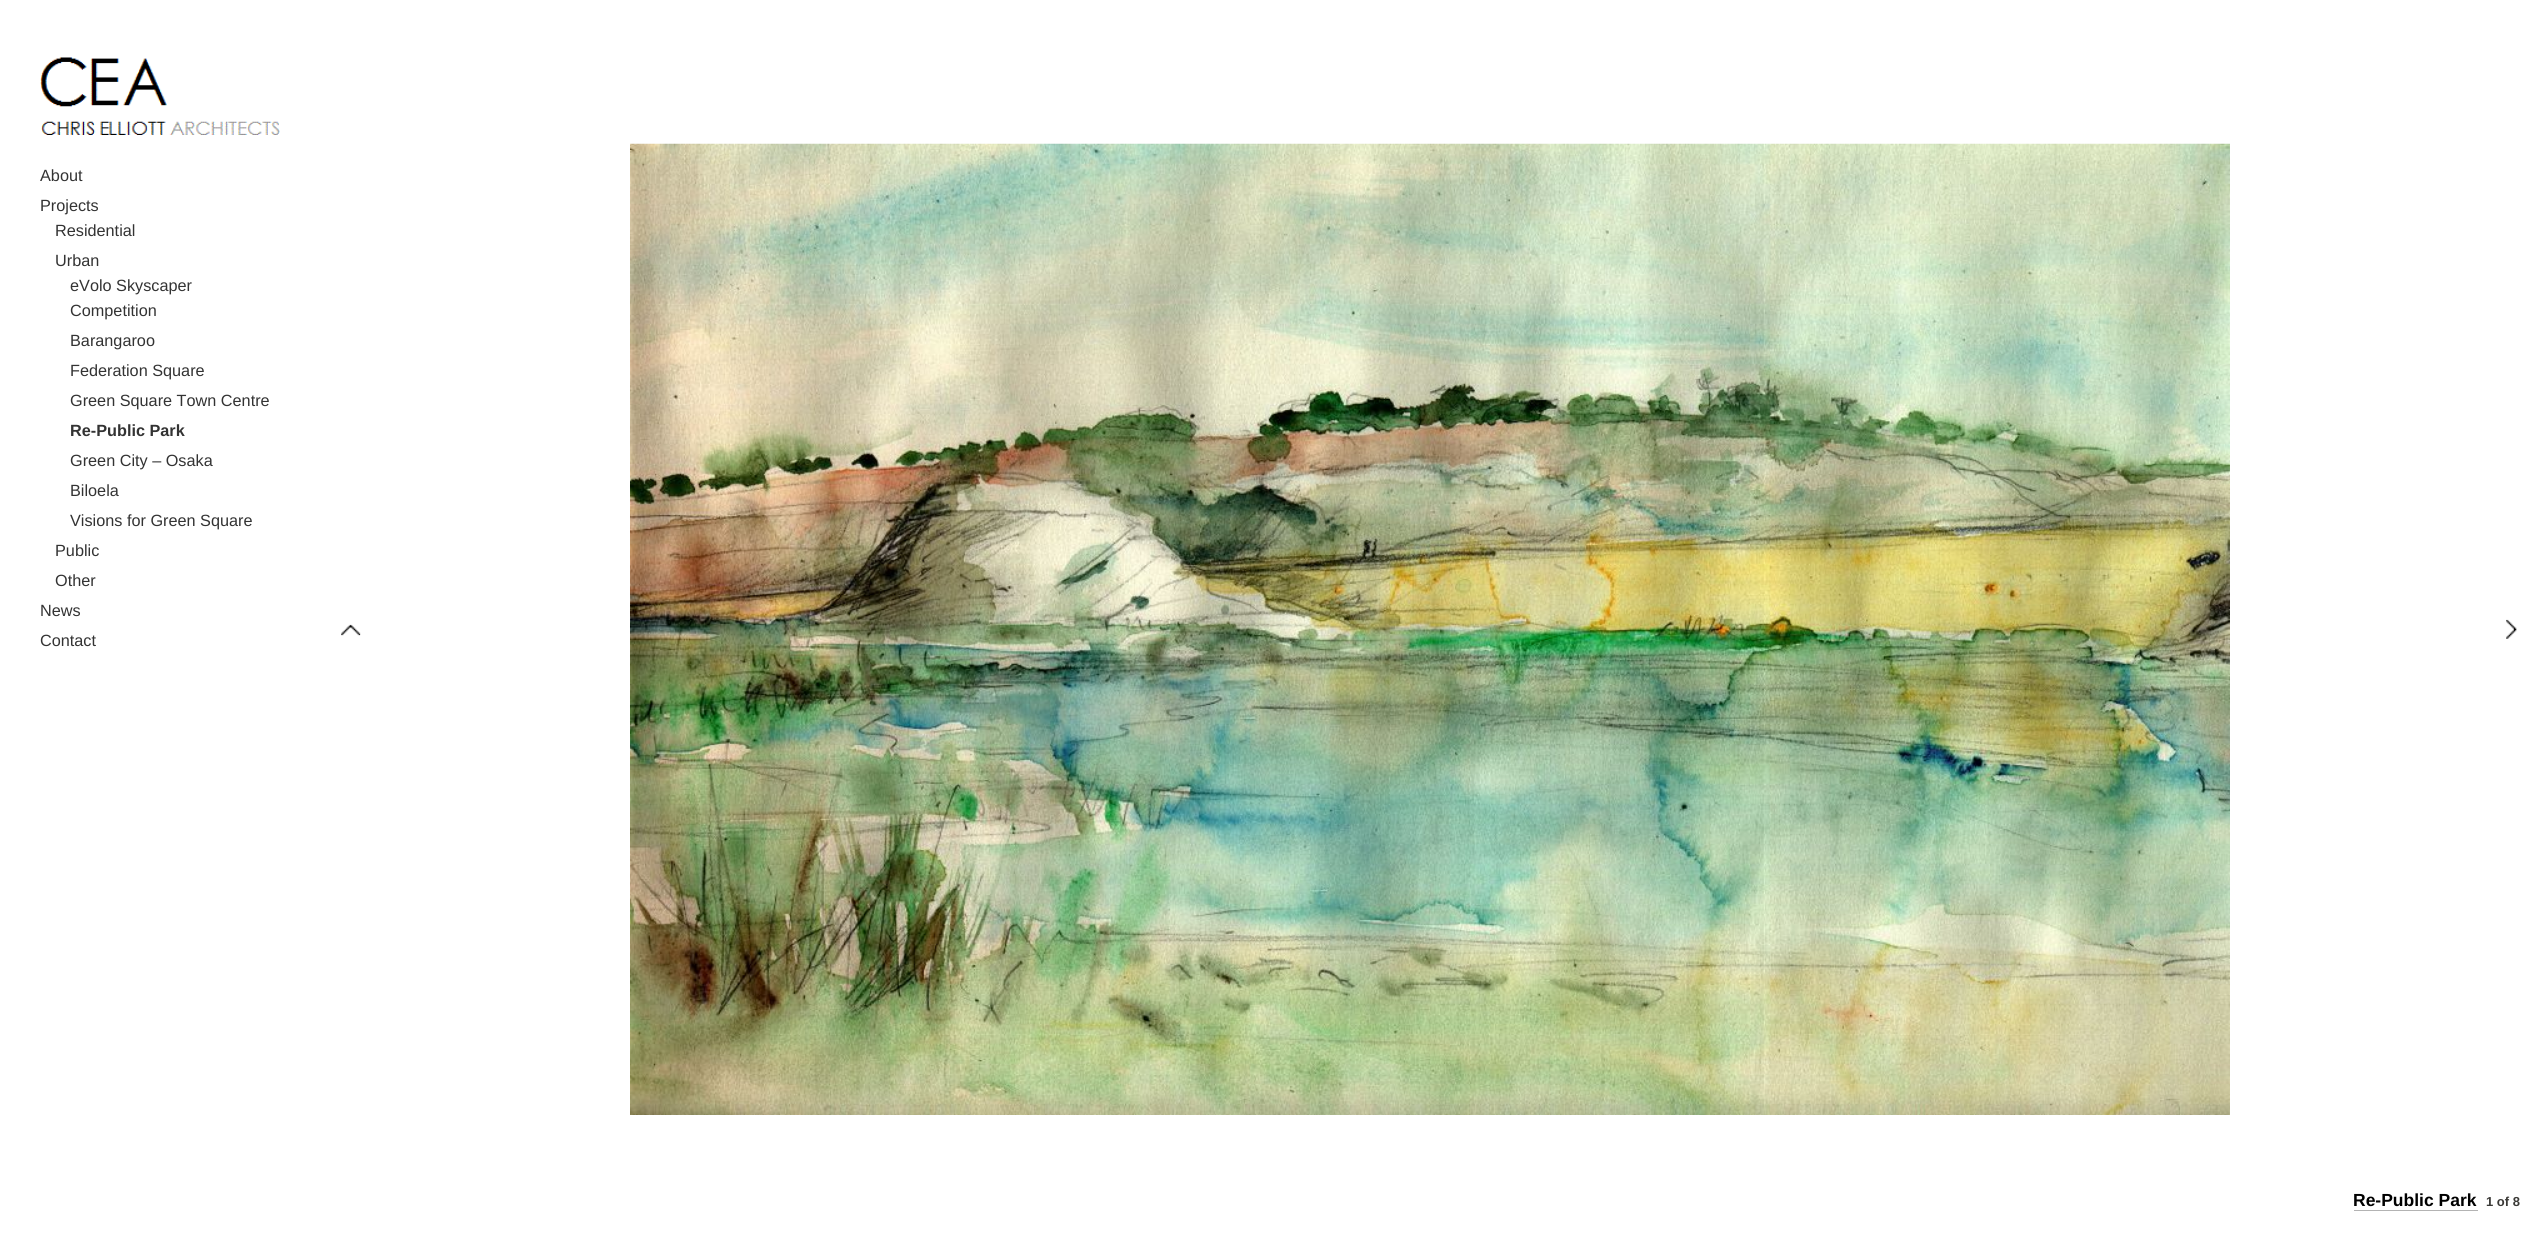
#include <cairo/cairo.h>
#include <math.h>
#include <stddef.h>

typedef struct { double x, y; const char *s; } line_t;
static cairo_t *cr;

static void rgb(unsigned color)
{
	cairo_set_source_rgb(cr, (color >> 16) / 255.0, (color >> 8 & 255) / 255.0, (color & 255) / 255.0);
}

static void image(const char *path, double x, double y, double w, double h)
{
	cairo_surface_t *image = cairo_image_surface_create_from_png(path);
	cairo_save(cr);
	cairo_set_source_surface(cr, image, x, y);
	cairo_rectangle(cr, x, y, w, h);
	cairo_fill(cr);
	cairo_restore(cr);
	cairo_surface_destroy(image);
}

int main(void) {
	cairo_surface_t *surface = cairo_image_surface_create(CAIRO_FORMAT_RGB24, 2539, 1259);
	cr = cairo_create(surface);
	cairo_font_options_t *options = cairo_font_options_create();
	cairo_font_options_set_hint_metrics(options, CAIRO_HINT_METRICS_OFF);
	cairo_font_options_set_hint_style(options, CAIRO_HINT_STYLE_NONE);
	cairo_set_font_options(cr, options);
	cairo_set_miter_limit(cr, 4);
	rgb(0xffffff);
	cairo_paint(cr);
	image("img/1.png", 40, 57, 240, 78);
	image("img/2.png", 630, 143, 1600, 972);
	image("img/3.png", 341, 624, 20, 12);
	image("img/4.png", 2506, 619, 11, 20);
	rgb(0xb3b3b3);
	cairo_rectangle(cr, 2354, 1210, 124, 1);
	cairo_fill(cr);
	cairo_select_font_face(cr, "Liberation Sans", CAIRO_FONT_SLANT_NORMAL, CAIRO_FONT_WEIGHT_NORMAL);
	cairo_set_font_size(cr, 16.25);
	rgb(0x333333);
	{
		static const line_t items[] = {
			{40, 181, "About"},
			{40, 211, "Projects"},
			{55, 236, "Residential"},
			{55, 266, "Urban"},
			{70, 291, "eVolo Skyscaper"},
			{70, 316, "Competition"},
			{70, 346, "Barangaroo"},
			{70, 376, "Federation Square"},
			{70, 406, "Green Square Town Centre"},
		};
		for (size_t i = 0; i < sizeof items / sizeof *items; i++) {
			cairo_move_to(cr, items[i].x, items[i].y);
			cairo_show_text(cr, items[i].s);
		}
	}
	cairo_select_font_face(cr, "Liberation Sans", CAIRO_FONT_SLANT_NORMAL, CAIRO_FONT_WEIGHT_BOLD);
	cairo_move_to(cr, 70, 436);
	cairo_show_text(cr, "Re-Public Park");
	cairo_select_font_face(cr, "Liberation Sans", CAIRO_FONT_SLANT_NORMAL, CAIRO_FONT_WEIGHT_NORMAL);
	{
		static const line_t items[] = {
			{70, 466, "Green City – Osaka"},
			{70, 496, "Biloela"},
			{70, 526, "Visions for Green Square"},
			{55, 556, "Public"},
			{55, 586, "Other"},
			{40, 616, "News"},
			{40, 646, "Contact"},
		};
		for (size_t i = 0; i < sizeof items / sizeof *items; i++) {
			cairo_move_to(cr, items[i].x, items[i].y);
			cairo_show_text(cr, items[i].s);
		}
	}
	cairo_select_font_face(cr, "Liberation Sans", CAIRO_FONT_SLANT_NORMAL, CAIRO_FONT_WEIGHT_BOLD);
	cairo_set_font_size(cr, 17.5);
	rgb(0x000000);
	cairo_move_to(cr, 2353, 1206);
	cairo_show_text(cr, "Re-Public Park");
	cairo_set_font_size(cr, 13);
	rgb(0x3b3a37);
	cairo_move_to(cr, 2486, 1206);
	cairo_show_text(cr, "1 of 8");
	cairo_surface_write_to_png(surface, "page.png");
	cairo_font_options_destroy(options);
	cairo_destroy(cr);
	cairo_surface_destroy(surface);
	return 0;
}
